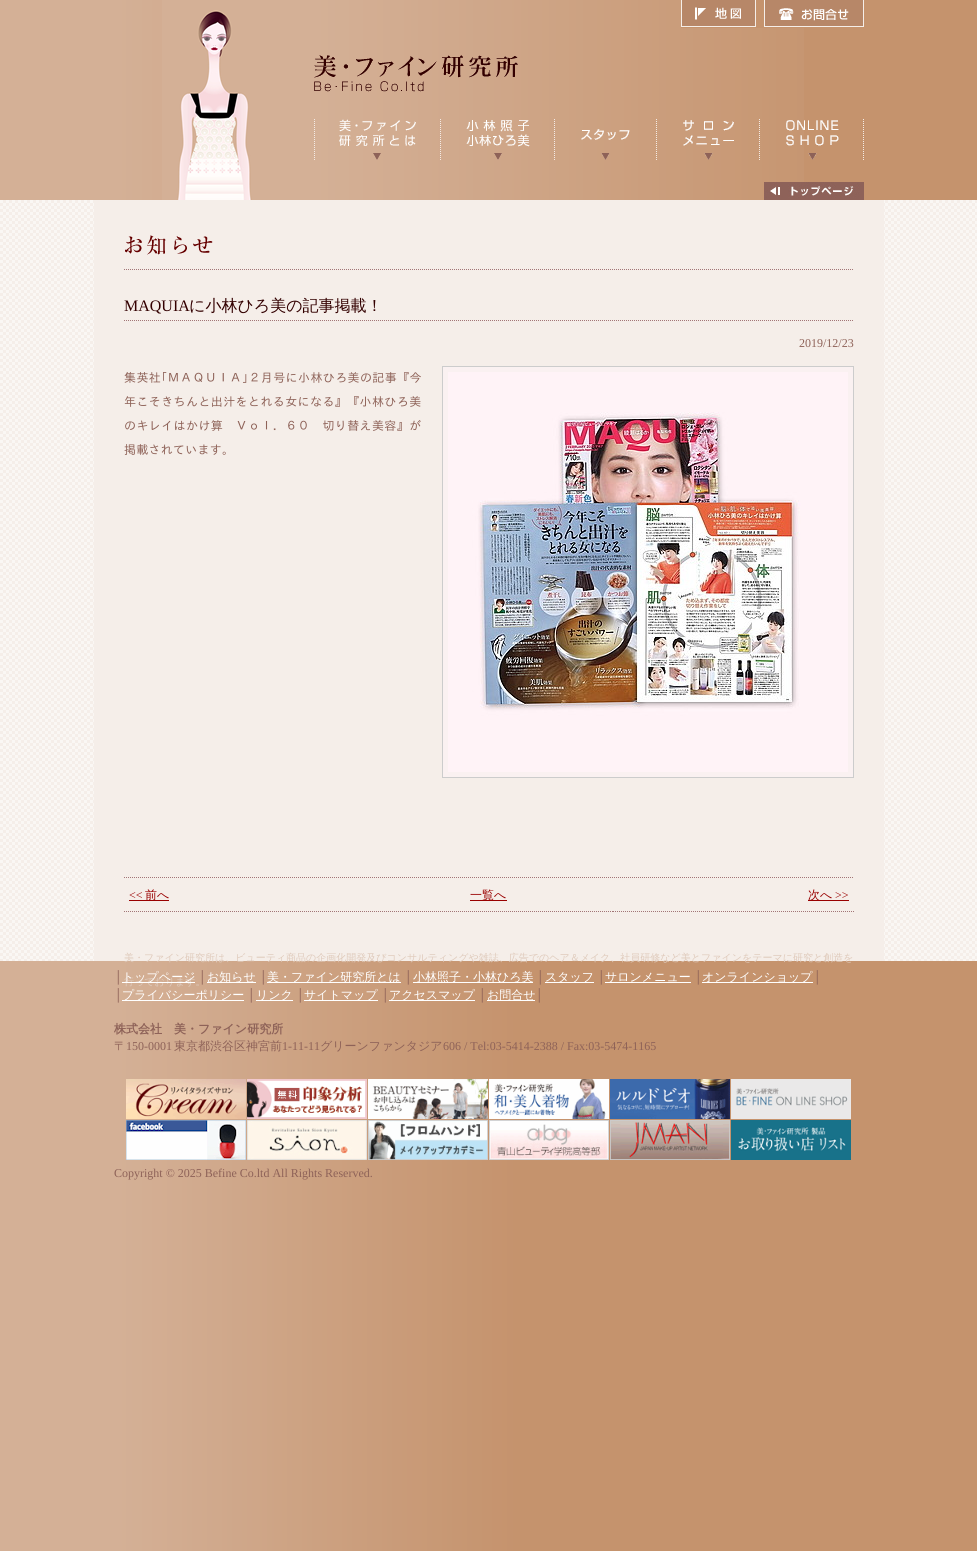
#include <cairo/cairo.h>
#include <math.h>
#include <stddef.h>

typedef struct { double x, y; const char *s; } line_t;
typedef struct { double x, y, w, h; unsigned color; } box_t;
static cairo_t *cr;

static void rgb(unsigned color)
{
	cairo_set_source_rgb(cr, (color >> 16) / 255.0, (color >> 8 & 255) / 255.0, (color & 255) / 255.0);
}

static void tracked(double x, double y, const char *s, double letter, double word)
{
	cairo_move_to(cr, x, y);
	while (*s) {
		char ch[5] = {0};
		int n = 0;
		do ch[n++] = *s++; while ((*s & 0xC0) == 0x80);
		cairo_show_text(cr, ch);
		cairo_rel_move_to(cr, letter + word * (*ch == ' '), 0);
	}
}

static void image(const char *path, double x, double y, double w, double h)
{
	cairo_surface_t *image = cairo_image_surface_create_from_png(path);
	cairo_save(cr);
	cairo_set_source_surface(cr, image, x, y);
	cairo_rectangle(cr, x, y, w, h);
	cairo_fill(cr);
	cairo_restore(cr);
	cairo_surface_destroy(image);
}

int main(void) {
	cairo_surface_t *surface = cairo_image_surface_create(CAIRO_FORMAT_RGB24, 977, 1551);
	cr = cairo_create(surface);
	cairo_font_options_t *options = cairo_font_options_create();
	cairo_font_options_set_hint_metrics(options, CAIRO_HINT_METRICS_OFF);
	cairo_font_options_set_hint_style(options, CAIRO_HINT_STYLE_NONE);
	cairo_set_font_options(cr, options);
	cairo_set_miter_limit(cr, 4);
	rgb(0xffffff);
	cairo_paint(cr);
	image("img/1.png", 0, 0, 977, 1551);
	image("img/2.png", 162, 0, 642, 200);
	image("img/3.png", 681, 0, 83, 28);
	image("img/4.png", 764, 0, 100, 28);
	image("img/5.png", 314, 55, 204, 37);
	image("img/6.png", 314, 119, 127, 41);
	image("img/7.png", 466, 119, 89, 41);
	image("img/8.png", 581, 129, 49, 31);
	image("img/9.png", 656, 119, 78, 41);
	image("img/10.png", 759, 119, 105, 41);
	image("img/11.png", 764, 182, 100, 18);
	image("img/12.png", 0, 200, 977, 761);
	rgb(0xf5eee9);
	cairo_rectangle(cr, 94, 200, 790, 761);
	cairo_fill(cr);
	image("img/13.png", 124, 269, 729, 1);
	image("img/14.png", 125, 235, 88, 20);
	image("img/13.png", 124, 320, 729, 1);
	rgb(0xfaf1f1);
	cairo_rectangle(cr, 442.5, 366.5, 411, 411);
	cairo_fill_preserve(cr);
	rgb(0xcccccc);
	cairo_set_line_width(cr, 1);
	cairo_stroke(cr);
	image("img/15.png", 448, 372, 400, 400);
	image("img/13.png", 124, 877, 729, 1);
	image("img/16.png", 124, 911, 239, 1);
	rgb(0x990000);
	cairo_rectangle(cr, 129, 900, 40, 1);
	cairo_fill(cr);
	image("img/17.png", 364, 911, 249, 1);
	cairo_rectangle(cr, 470, 900, 37, 1);
	cairo_fill(cr);
	image("img/18.png", 613, 911, 241, 1);
	{
		static const box_t items[] = {
			{808, 900, 41, 1, 0x990000},
			{207, 982, 49, 1, 0xffffff},
			{267, 982, 134, 1, 0xffffff},
			{413, 982, 120, 1, 0xffffff},
			{545, 982, 49, 1, 0xffffff},
			{605, 982, 86, 1, 0xffffff},
			{702, 982, 111, 1, 0xffffff},
			{122, 1000, 122, 1, 0xffffff},
			{256, 1000, 37, 1, 0xffffff},
			{304, 1000, 74, 1, 0xffffff},
			{389, 1000, 86, 1, 0xffffff},
			{487, 1000, 48, 1, 0xffffff},
		};
		for (size_t i = 0; i < sizeof items / sizeof *items; i++) {
			rgb(items[i].color);
			cairo_rectangle(cr, items[i].x, items[i].y, items[i].w, items[i].h);
			cairo_fill(cr);
		}
	}
	image("img/19.png", 126, 1079, 120, 40);
	image("img/20.png", 247, 1079, 120, 40);
	image("img/21.png", 368, 1079, 120, 40);
	image("img/22.png", 489, 1079, 120, 40);
	image("img/23.png", 610, 1079, 120, 40);
	image("img/24.png", 731, 1079, 120, 40);
	image("img/25.png", 126, 1120, 120, 40);
	image("img/26.png", 247, 1120, 120, 40);
	image("img/27.png", 368, 1120, 120, 40);
	image("img/28.png", 489, 1120, 120, 40);
	image("img/29.png", 610, 1120, 120, 40);
	image("img/30.png", 731, 1120, 120, 40);
	cairo_select_font_face(cr, "Liberation Serif", CAIRO_FONT_SLANT_NORMAL, CAIRO_FONT_WEIGHT_NORMAL);
	cairo_set_font_size(cr, 16);
	rgb(0x330000);
	cairo_move_to(cr, 124, 311);
	cairo_show_text(cr, "MAQUIA");
	cairo_select_font_face(cr, "WenQuanYi Zen Hei Medium", CAIRO_FONT_SLANT_NORMAL, CAIRO_FONT_WEIGHT_NORMAL);
	cairo_move_to(cr, 189, 311);
	cairo_show_text(cr, "に小林ひろ美の記事掲載！");
	cairo_select_font_face(cr, "Liberation Serif", CAIRO_FONT_SLANT_NORMAL, CAIRO_FONT_WEIGHT_NORMAL);
	cairo_set_font_size(cr, 12);
	rgb(0x8e6258);
	cairo_move_to(cr, 799, 347);
	cairo_show_text(cr, "2019/12/23");
	cairo_select_font_face(cr, "IPAGothic", CAIRO_FONT_SLANT_NORMAL, CAIRO_FONT_WEIGHT_NORMAL);
	{
		static const line_t items[] = {
			{124, 382, "集英社｢ＭＡＱＵＩＡ｣２月号に小林ひろ美の記事『今"},
			{124, 406, "年こそきちんと出汁をとれる女になる』『小林ひろ美"},
			{124, 430, "のキレイはかけ算　Ｖｏｌ．６０　切り替え美容』が"},
		};
		for (size_t i = 0; i < sizeof items / sizeof *items; i++) {
			tracked(items[i].x, items[i].y, items[i].s, 0.4, 0);
		}
	}
	tracked(124, 454, "掲載されています。", 0.25, 0);
	cairo_select_font_face(cr, "Liberation Serif", CAIRO_FONT_SLANT_NORMAL, CAIRO_FONT_WEIGHT_NORMAL);
	rgb(0x990000);
	cairo_move_to(cr, 129, 899);
	cairo_show_text(cr, "<<");
	cairo_select_font_face(cr, "WenQuanYi Zen Hei Medium", CAIRO_FONT_SLANT_NORMAL, CAIRO_FONT_WEIGHT_NORMAL);
	{
		static const line_t items[] = {
			{145, 899, "前へ"},
			{470, 899, "一覧へ"},
			{808, 899, "次へ"},
		};
		for (size_t i = 0; i < sizeof items / sizeof *items; i++) {
			cairo_move_to(cr, items[i].x, items[i].y);
			cairo_show_text(cr, items[i].s);
		}
	}
	cairo_select_font_face(cr, "Liberation Serif", CAIRO_FONT_SLANT_NORMAL, CAIRO_FONT_WEIGHT_NORMAL);
	cairo_move_to(cr, 835, 899);
	cairo_show_text(cr, ">>");
	cairo_select_font_face(cr, "WenQuanYi Zen Hei Medium", CAIRO_FONT_SLANT_NORMAL, CAIRO_FONT_WEIGHT_NORMAL);
	cairo_set_font_size(cr, 10);
	rgb(0xdfcabb);
	cairo_move_to(cr, 124, 961);
	cairo_show_text(cr, "美・ファイン研究所は、ビューティ商品の企画化開発及びコンサルティングや雑誌、広告でのヘア＆メイク、社員研修など美とファインをテーマに研究と創造を");
	cairo_move_to(cr, 124, 985);
	cairo_show_text(cr, "行っております。");
	cairo_select_font_face(cr, "Liberation Serif", CAIRO_FONT_SLANT_NORMAL, CAIRO_FONT_WEIGHT_NORMAL);
	cairo_set_font_size(cr, 12);
	rgb(0x8e6258);
	cairo_move_to(cr, 114, 981);
	cairo_show_text(cr, "│");
	rgb(0xffffff);
	cairo_rectangle(cr, 122, 982, 73, 1);
	cairo_fill(cr);
	cairo_select_font_face(cr, "WenQuanYi Zen Hei Medium", CAIRO_FONT_SLANT_NORMAL, CAIRO_FONT_WEIGHT_NORMAL);
	cairo_move_to(cr, 122, 981);
	cairo_show_text(cr, "トップページ");
	cairo_select_font_face(cr, "Liberation Serif", CAIRO_FONT_SLANT_NORMAL, CAIRO_FONT_WEIGHT_NORMAL);
	rgb(0x8e6258);
	cairo_move_to(cr, 198, 981);
	cairo_show_text(cr, "│");
	cairo_select_font_face(cr, "WenQuanYi Zen Hei Medium", CAIRO_FONT_SLANT_NORMAL, CAIRO_FONT_WEIGHT_NORMAL);
	rgb(0xffffff);
	cairo_move_to(cr, 207, 981);
	cairo_show_text(cr, "お知らせ");
	cairo_select_font_face(cr, "Liberation Serif", CAIRO_FONT_SLANT_NORMAL, CAIRO_FONT_WEIGHT_NORMAL);
	rgb(0x8e6258);
	cairo_move_to(cr, 259, 981);
	cairo_show_text(cr, "│");
	cairo_select_font_face(cr, "WenQuanYi Zen Hei Medium", CAIRO_FONT_SLANT_NORMAL, CAIRO_FONT_WEIGHT_NORMAL);
	rgb(0xffffff);
	cairo_move_to(cr, 267, 981);
	cairo_show_text(cr, "美・ファイン研究所とは");
	cairo_select_font_face(cr, "Liberation Serif", CAIRO_FONT_SLANT_NORMAL, CAIRO_FONT_WEIGHT_NORMAL);
	rgb(0x8e6258);
	cairo_move_to(cr, 404, 981);
	cairo_show_text(cr, "│");
	cairo_select_font_face(cr, "WenQuanYi Zen Hei Medium", CAIRO_FONT_SLANT_NORMAL, CAIRO_FONT_WEIGHT_NORMAL);
	rgb(0xffffff);
	cairo_move_to(cr, 413, 981);
	cairo_show_text(cr, "小林照子・小林ひろ美");
	cairo_select_font_face(cr, "Liberation Serif", CAIRO_FONT_SLANT_NORMAL, CAIRO_FONT_WEIGHT_NORMAL);
	rgb(0x8e6258);
	cairo_move_to(cr, 536, 981);
	cairo_show_text(cr, "│");
	cairo_select_font_face(cr, "WenQuanYi Zen Hei Medium", CAIRO_FONT_SLANT_NORMAL, CAIRO_FONT_WEIGHT_NORMAL);
	rgb(0xffffff);
	cairo_move_to(cr, 545, 981);
	cairo_show_text(cr, "スタッフ");
	cairo_select_font_face(cr, "Liberation Serif", CAIRO_FONT_SLANT_NORMAL, CAIRO_FONT_WEIGHT_NORMAL);
	rgb(0x8e6258);
	cairo_move_to(cr, 597, 981);
	cairo_show_text(cr, "│");
	cairo_select_font_face(cr, "WenQuanYi Zen Hei Medium", CAIRO_FONT_SLANT_NORMAL, CAIRO_FONT_WEIGHT_NORMAL);
	rgb(0xffffff);
	cairo_move_to(cr, 605, 981);
	cairo_show_text(cr, "サロンメニュー");
	cairo_select_font_face(cr, "Liberation Serif", CAIRO_FONT_SLANT_NORMAL, CAIRO_FONT_WEIGHT_NORMAL);
	rgb(0x8e6258);
	cairo_move_to(cr, 694, 981);
	cairo_show_text(cr, "│");
	cairo_select_font_face(cr, "WenQuanYi Zen Hei Medium", CAIRO_FONT_SLANT_NORMAL, CAIRO_FONT_WEIGHT_NORMAL);
	rgb(0xffffff);
	cairo_move_to(cr, 702, 981);
	cairo_show_text(cr, "オンラインショップ");
	cairo_select_font_face(cr, "Liberation Serif", CAIRO_FONT_SLANT_NORMAL, CAIRO_FONT_WEIGHT_NORMAL);
	rgb(0x8e6258);
	cairo_move_to(cr, 813, 981);
	cairo_show_text(cr, "│");
	cairo_move_to(cr, 114, 999);
	cairo_show_text(cr, "│");
	cairo_select_font_face(cr, "WenQuanYi Zen Hei Medium", CAIRO_FONT_SLANT_NORMAL, CAIRO_FONT_WEIGHT_NORMAL);
	rgb(0xffffff);
	cairo_move_to(cr, 122, 999);
	cairo_show_text(cr, "プライバシーポリシー");
	cairo_select_font_face(cr, "Liberation Serif", CAIRO_FONT_SLANT_NORMAL, CAIRO_FONT_WEIGHT_NORMAL);
	rgb(0x8e6258);
	cairo_move_to(cr, 247, 999);
	cairo_show_text(cr, "│");
	cairo_select_font_face(cr, "WenQuanYi Zen Hei Medium", CAIRO_FONT_SLANT_NORMAL, CAIRO_FONT_WEIGHT_NORMAL);
	rgb(0xffffff);
	cairo_move_to(cr, 256, 999);
	cairo_show_text(cr, "リンク");
	cairo_select_font_face(cr, "Liberation Serif", CAIRO_FONT_SLANT_NORMAL, CAIRO_FONT_WEIGHT_NORMAL);
	rgb(0x8e6258);
	cairo_move_to(cr, 296, 999);
	cairo_show_text(cr, "│");
	cairo_select_font_face(cr, "WenQuanYi Zen Hei Medium", CAIRO_FONT_SLANT_NORMAL, CAIRO_FONT_WEIGHT_NORMAL);
	rgb(0xffffff);
	cairo_move_to(cr, 304, 999);
	cairo_show_text(cr, "サイトマップ");
	cairo_select_font_face(cr, "Liberation Serif", CAIRO_FONT_SLANT_NORMAL, CAIRO_FONT_WEIGHT_NORMAL);
	rgb(0x8e6258);
	cairo_move_to(cr, 381, 999);
	cairo_show_text(cr, "│");
	cairo_select_font_face(cr, "WenQuanYi Zen Hei Medium", CAIRO_FONT_SLANT_NORMAL, CAIRO_FONT_WEIGHT_NORMAL);
	rgb(0xffffff);
	cairo_move_to(cr, 389, 999);
	cairo_show_text(cr, "アクセスマップ");
	cairo_select_font_face(cr, "Liberation Serif", CAIRO_FONT_SLANT_NORMAL, CAIRO_FONT_WEIGHT_NORMAL);
	rgb(0x8e6258);
	cairo_move_to(cr, 478, 999);
	cairo_show_text(cr, "│");
	cairo_select_font_face(cr, "WenQuanYi Zen Hei Medium", CAIRO_FONT_SLANT_NORMAL, CAIRO_FONT_WEIGHT_NORMAL);
	rgb(0xffffff);
	cairo_move_to(cr, 487, 999);
	cairo_show_text(cr, "お問合せ");
	cairo_select_font_face(cr, "Liberation Serif", CAIRO_FONT_SLANT_NORMAL, CAIRO_FONT_WEIGHT_NORMAL);
	rgb(0x8e6258);
	cairo_move_to(cr, 535, 999);
	cairo_show_text(cr, "│");
	cairo_select_font_face(cr, "WenQuanYi Zen Hei", CAIRO_FONT_SLANT_NORMAL, CAIRO_FONT_WEIGHT_BOLD);
	cairo_move_to(cr, 114, 1033);
	cairo_show_text(cr, "株式会社　美・ファイン研究所");
	cairo_select_font_face(cr, "WenQuanYi Zen Hei Medium", CAIRO_FONT_SLANT_NORMAL, CAIRO_FONT_WEIGHT_NORMAL);
	cairo_move_to(cr, 114, 1050);
	cairo_show_text(cr, "〒");
	cairo_select_font_face(cr, "Liberation Serif", CAIRO_FONT_SLANT_NORMAL, CAIRO_FONT_WEIGHT_NORMAL);
	cairo_move_to(cr, 126, 1050);
	cairo_show_text(cr, "150-0001");
	cairo_select_font_face(cr, "WenQuanYi Zen Hei Medium", CAIRO_FONT_SLANT_NORMAL, CAIRO_FONT_WEIGHT_NORMAL);
	cairo_move_to(cr, 174, 1050);
	cairo_show_text(cr, "東京都渋谷区神宮前");
	cairo_select_font_face(cr, "Liberation Serif", CAIRO_FONT_SLANT_NORMAL, CAIRO_FONT_WEIGHT_NORMAL);
	cairo_move_to(cr, 282, 1050);
	cairo_show_text(cr, "1-11-11");
	cairo_select_font_face(cr, "WenQuanYi Zen Hei Medium", CAIRO_FONT_SLANT_NORMAL, CAIRO_FONT_WEIGHT_NORMAL);
	cairo_move_to(cr, 320, 1050);
	cairo_show_text(cr, "グリーンファンタジア");
	cairo_select_font_face(cr, "Liberation Serif", CAIRO_FONT_SLANT_NORMAL, CAIRO_FONT_WEIGHT_NORMAL);
	cairo_move_to(cr, 443, 1050);
	cairo_show_text(cr, "606 / Tel:03-5414-2388 / Fax:03-5474-1165");
	cairo_move_to(cr, 114, 1177);
	cairo_show_text(cr, "Copyright © 2025 Befine Co.ltd All Rights Reserved.");
	cairo_surface_write_to_png(surface, "page.png");
	cairo_font_options_destroy(options);
	cairo_destroy(cr);
	cairo_surface_destroy(surface);
	return 0;
}
